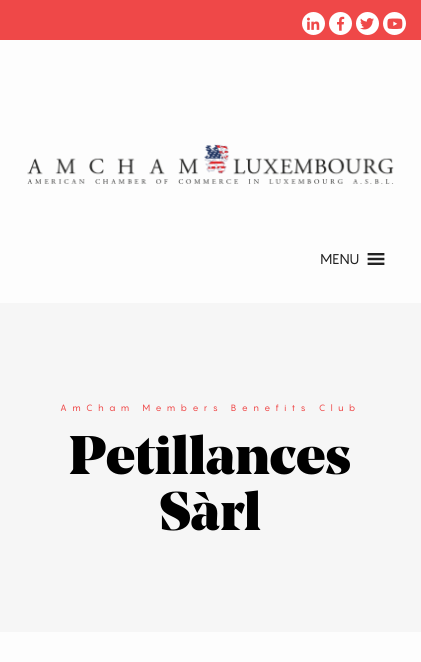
#include <cairo/cairo.h>
#include <math.h>
#include <stddef.h>

static cairo_t *cr;

static void rgb(unsigned color)
{
	cairo_set_source_rgb(cr, (color >> 16) / 255.0, (color >> 8 & 255) / 255.0, (color & 255) / 255.0);
}

static void tracked(double x, double y, const char *s, double letter, double word)
{
	cairo_move_to(cr, x, y);
	while (*s) {
		char ch[5] = {0};
		int n = 0;
		do ch[n++] = *s++; while ((*s & 0xC0) == 0x80);
		cairo_show_text(cr, ch);
		cairo_rel_move_to(cr, letter + word * (*ch == ' '), 0);
	}
}

static void image(const char *path, double x, double y, double w, double h)
{
	cairo_surface_t *image = cairo_image_surface_create_from_png(path);
	cairo_save(cr);
	cairo_set_source_surface(cr, image, x, y);
	cairo_rectangle(cr, x, y, w, h);
	cairo_fill(cr);
	cairo_restore(cr);
	cairo_surface_destroy(image);
}

int main(void) {
	cairo_surface_t *surface = cairo_image_surface_create(CAIRO_FORMAT_RGB24, 421, 662);
	cr = cairo_create(surface);
	cairo_font_options_t *options = cairo_font_options_create();
	cairo_font_options_set_hint_metrics(options, CAIRO_HINT_METRICS_OFF);
	cairo_font_options_set_hint_style(options, CAIRO_HINT_STYLE_NONE);
	cairo_set_font_options(cr, options);
	cairo_set_miter_limit(cr, 4);
	rgb(0xfdfdfd);
	cairo_paint(cr);
	rgb(0xef4848);
	cairo_rectangle(cr, 0, 0, 421, 40);
	cairo_fill(cr);
	rgb(0xffffff);
	cairo_arc(cr, 313.5, 23.5, 11.5, 0, 2 * M_PI);
	cairo_fill(cr);
	image("img/1.png", 307, 17, 13, 13);
	cairo_arc(cr, 340.5, 23.5, 11.5, 0, 2 * M_PI);
	cairo_fill(cr);
	image("img/2.png", 337, 16, 8, 15);
	cairo_arc(cr, 367.5, 23.5, 11.5, 0, 2 * M_PI);
	cairo_fill(cr);
	image("img/3.png", 360, 18, 14, 12);
	cairo_arc(cr, 394.5, 23.5, 11.5, 0, 2 * M_PI);
	cairo_fill(cr);
	image("img/4.png", 387, 18, 16, 11);
	image("img/5.png", 27, 144, 367, 40);
	image("img/6.png", 367, 253, 18, 12);
	rgb(0xf6f6f6);
	cairo_rectangle(cr, 0, 303, 421, 329);
	cairo_fill(cr);
	cairo_select_font_face(cr, "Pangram", CAIRO_FONT_SLANT_NORMAL, CAIRO_FONT_WEIGHT_NORMAL);
	cairo_set_font_size(cr, 14);
	rgb(0x222222);
	cairo_move_to(cr, 320, 264);
	cairo_show_text(cr, "MENU");
	cairo_set_font_size(cr, 9);
	rgb(0xef4848);
	tracked(60, 411, "AmCham Members Benefits Club", 5.4, 0);
	cairo_select_font_face(cr, "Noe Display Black", CAIRO_FONT_SLANT_NORMAL, CAIRO_FONT_WEIGHT_NORMAL);
	cairo_set_font_size(cr, 54);
	rgb(0x000000);
	cairo_move_to(cr, 69, 474);
	cairo_show_text(cr, "Petillances");
	cairo_move_to(cr, 159, 530);
	cairo_show_text(cr, "Sàrl");
	cairo_surface_write_to_png(surface, "page.png");
	cairo_font_options_destroy(options);
	cairo_destroy(cr);
	cairo_surface_destroy(surface);
	return 0;
}
